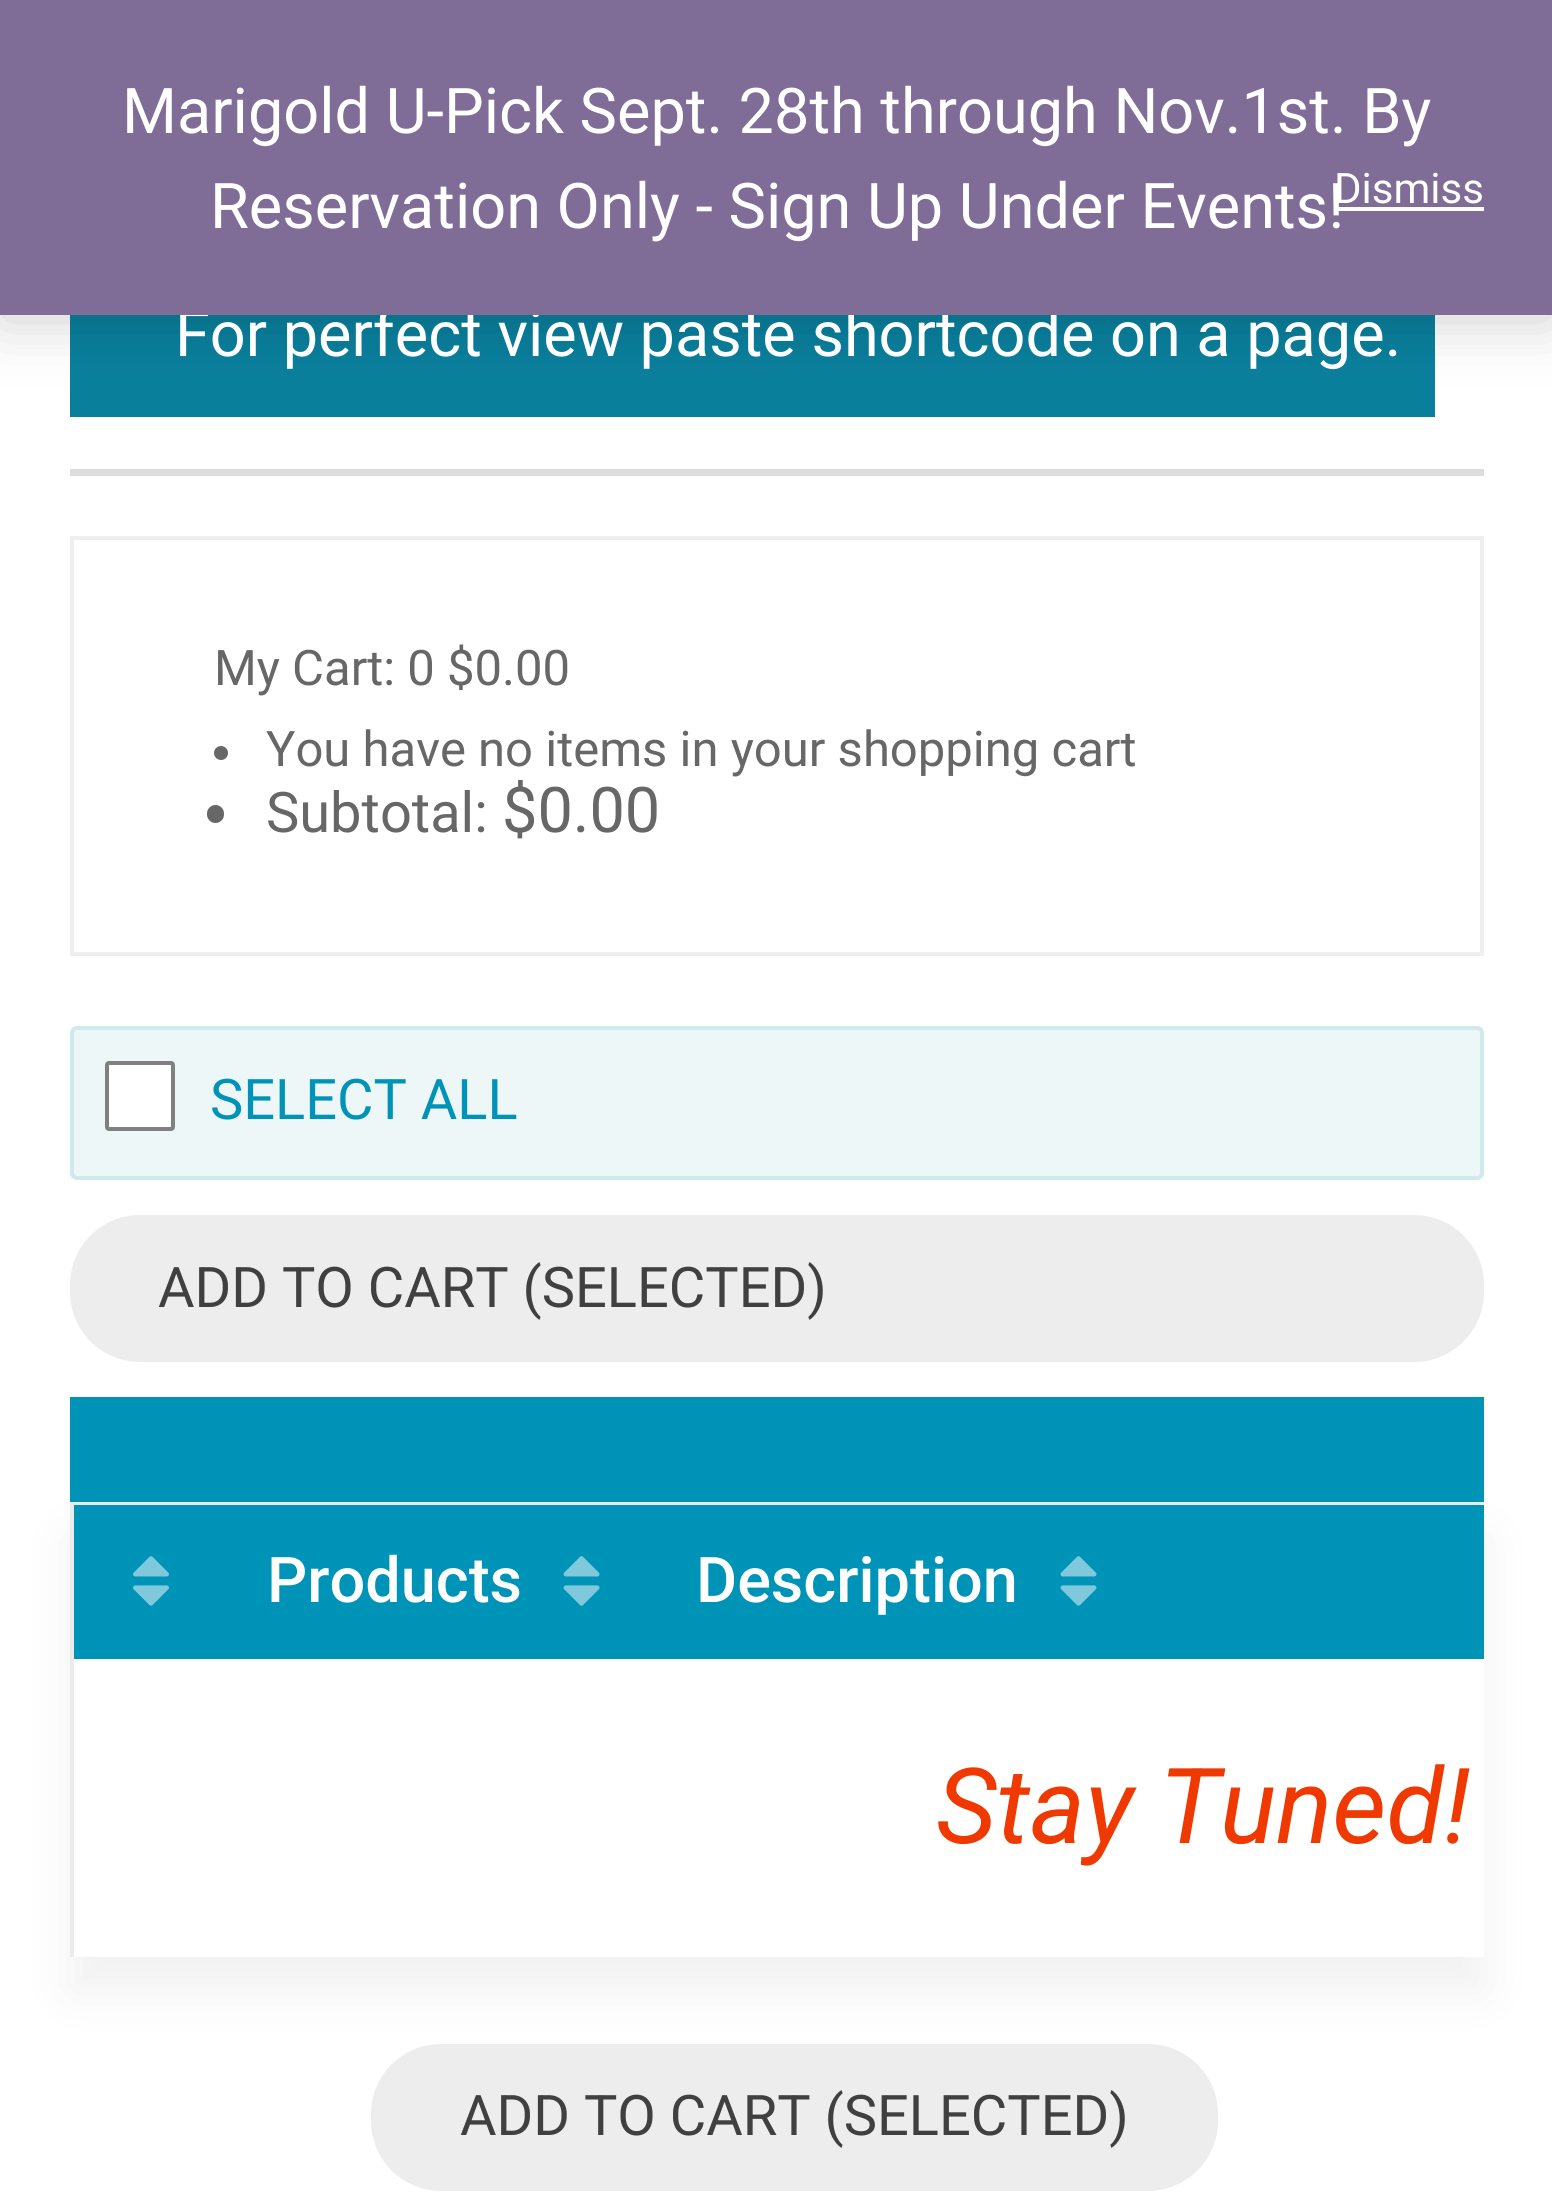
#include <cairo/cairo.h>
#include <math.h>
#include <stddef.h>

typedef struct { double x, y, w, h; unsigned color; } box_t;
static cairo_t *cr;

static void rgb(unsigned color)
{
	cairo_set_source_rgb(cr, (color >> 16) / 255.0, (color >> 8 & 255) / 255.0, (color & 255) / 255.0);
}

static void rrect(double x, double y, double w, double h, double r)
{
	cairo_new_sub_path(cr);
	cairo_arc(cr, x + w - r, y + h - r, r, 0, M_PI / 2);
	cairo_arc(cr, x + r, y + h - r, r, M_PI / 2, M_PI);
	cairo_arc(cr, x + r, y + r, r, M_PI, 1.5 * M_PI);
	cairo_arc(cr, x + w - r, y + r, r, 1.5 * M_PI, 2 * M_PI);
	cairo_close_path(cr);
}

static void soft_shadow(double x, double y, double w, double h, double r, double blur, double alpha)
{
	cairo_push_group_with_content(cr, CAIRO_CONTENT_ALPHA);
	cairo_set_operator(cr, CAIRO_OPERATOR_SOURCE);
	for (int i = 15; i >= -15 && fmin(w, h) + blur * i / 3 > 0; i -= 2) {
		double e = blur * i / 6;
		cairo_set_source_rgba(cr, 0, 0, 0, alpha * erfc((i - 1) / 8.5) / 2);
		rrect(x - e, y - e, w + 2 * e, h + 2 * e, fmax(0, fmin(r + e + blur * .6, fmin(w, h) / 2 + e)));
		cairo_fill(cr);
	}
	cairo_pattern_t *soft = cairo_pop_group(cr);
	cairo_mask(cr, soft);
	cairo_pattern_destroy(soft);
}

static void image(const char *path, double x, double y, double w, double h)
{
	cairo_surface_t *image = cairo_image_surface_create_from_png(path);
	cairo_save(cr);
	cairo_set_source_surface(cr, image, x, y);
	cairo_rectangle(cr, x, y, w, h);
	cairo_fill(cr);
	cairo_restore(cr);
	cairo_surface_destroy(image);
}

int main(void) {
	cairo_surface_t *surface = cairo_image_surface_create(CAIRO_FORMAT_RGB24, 1552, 2202);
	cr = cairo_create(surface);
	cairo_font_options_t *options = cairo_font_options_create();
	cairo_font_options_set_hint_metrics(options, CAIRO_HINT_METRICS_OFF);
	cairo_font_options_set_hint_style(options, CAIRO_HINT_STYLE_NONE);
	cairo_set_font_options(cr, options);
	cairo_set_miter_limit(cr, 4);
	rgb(0xffffff);
	cairo_paint(cr);
	rgb(0x0a7f9c);
	cairo_rectangle(cr, 70, 315, 1365, 102);
	cairo_fill(cr);
	rgb(0x000000);
	soft_shadow(0, 4, 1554, 315, 0, 31.5, 0.2);
	rgb(0xdddddd);
	cairo_rectangle(cr, 70, 469, 1414, 7);
	cairo_fill(cr);
	cairo_rectangle(cr, 72, 538, 1410, 416);
	rgb(0xefefef);
	cairo_set_line_width(cr, 4);
	cairo_stroke(cr);
	rgb(0x676767);
	cairo_arc(cr, 221, 753, 7, 0, 2 * M_PI);
	cairo_fill(cr);
	rrect(207, 805, 17, 18, 8.5);
	cairo_fill(cr);
	rgb(0xedf7f8);
	rrect(72, 1028, 1410, 150, 5);
	cairo_fill_preserve(cr);
	rgb(0xceeaed);
	cairo_stroke(cr);
	rgb(0xffffff);
	rrect(107, 1063, 66, 66, 2);
	cairo_fill_preserve(cr);
	rgb(0x808080);
	cairo_stroke(cr);
	rgb(0xededed);
	rrect(70, 1215, 1414, 147, 70);
	cairo_fill(cr);
	rgb(0x0093b8);
	cairo_rectangle(cr, 70, 1397, 1414, 105);
	cairo_fill(cr);
	rgb(0x000000);
	soft_shadow(70, 1537, 1414, 455, 0, 26, 0.06);
	{
		static const box_t items[] = {
			{74, 1659, 1410, 298, 0xffffff},
			{70, 1502, 1414, 3, 0xebebeb},
			{70, 1502, 4, 455, 0xebebeb},
			{74, 1505, 1410, 154, 0x0093b8},
		};
		for (size_t i = 0; i < sizeof items / sizeof *items; i++) {
			rgb(items[i].color);
			cairo_rectangle(cr, items[i].x, items[i].y, items[i].w, items[i].h);
			cairo_fill(cr);
		}
	}
	image("img/1.png", 133, 1556, 36, 50);
	image("img/2.png", 563, 1556, 37, 50);
	image("img/2.png", 1060, 1556, 37, 50);
	rgb(0xededed);
	rrect(371, 2044, 847, 147, 70);
	cairo_fill(cr);
	cairo_select_font_face(cr, "Roboto", CAIRO_FONT_SLANT_NORMAL, CAIRO_FONT_WEIGHT_NORMAL);
	cairo_set_font_size(cr, 63);
	rgb(0xffffff);
	cairo_move_to(cr, 175, 356);
	cairo_show_text(cr, "For perfect view paste shortcode on a page.");
	rgb(0x806d97);
	cairo_rectangle(cr, 0, 0, 1552, 315);
	cairo_fill(cr);
	rgb(0xffffff);
	cairo_move_to(cr, 210, 228);
	cairo_show_text(cr, "Reservation Only - Sign Up Under Events!");
	cairo_set_font_size(cr, 42);
	cairo_move_to(cr, 1334, 203);
	cairo_show_text(cr, "Dismiss");
	cairo_rectangle(cr, 1334, 207, 150, 4);
	cairo_fill(cr);
	cairo_set_font_size(cr, 63);
	cairo_move_to(cr, 122, 133);
	cairo_show_text(cr, "Marigold U-Pick Sept. 28th through Nov.1st. By");
	cairo_set_font_size(cr, 49);
	rgb(0x676767);
	cairo_move_to(cr, 214, 685);
	cairo_show_text(cr, "My Cart: 0 $0.00");
	cairo_move_to(cr, 266, 766);
	cairo_show_text(cr, "You have no items in your shopping cart");
	cairo_set_font_size(cr, 56);
	cairo_move_to(cr, 266, 832);
	cairo_show_text(cr, "Subtotal:");
	cairo_set_font_size(cr, 63);
	cairo_move_to(cr, 502, 832);
	cairo_show_text(cr, "$0.00");
	cairo_set_font_size(cr, 56);
	rgb(0x0093b8);
	cairo_move_to(cr, 210, 1119);
	cairo_show_text(cr, "SELECT ALL");
	rgb(0x404040);
	cairo_move_to(cr, 158, 1307);
	cairo_show_text(cr, "ADD TO CART (SELECTED)");
	cairo_select_font_face(cr, "Roboto Medium", CAIRO_FONT_SLANT_NORMAL, CAIRO_FONT_WEIGHT_NORMAL);
	cairo_set_font_size(cr, 63);
	rgb(0xffffff);
	cairo_move_to(cr, 267, 1602);
	cairo_show_text(cr, "Products");
	cairo_move_to(cr, 696, 1602);
	cairo_show_text(cr, "Description");
	cairo_select_font_face(cr, "Roboto", CAIRO_FONT_SLANT_ITALIC, CAIRO_FONT_WEIGHT_NORMAL);
	cairo_set_font_size(cr, 105);
	rgb(0xef3900);
	cairo_move_to(cr, 936, 1843);
	cairo_show_text(cr, "Stay Tuned!");
	cairo_select_font_face(cr, "Roboto", CAIRO_FONT_SLANT_NORMAL, CAIRO_FONT_WEIGHT_NORMAL);
	cairo_set_font_size(cr, 56);
	rgb(0x404040);
	cairo_move_to(cr, 460, 2135);
	cairo_show_text(cr, "ADD TO CART (SELECTED)");
	cairo_surface_write_to_png(surface, "page.png");
	cairo_font_options_destroy(options);
	cairo_destroy(cr);
	cairo_surface_destroy(surface);
	return 0;
}
